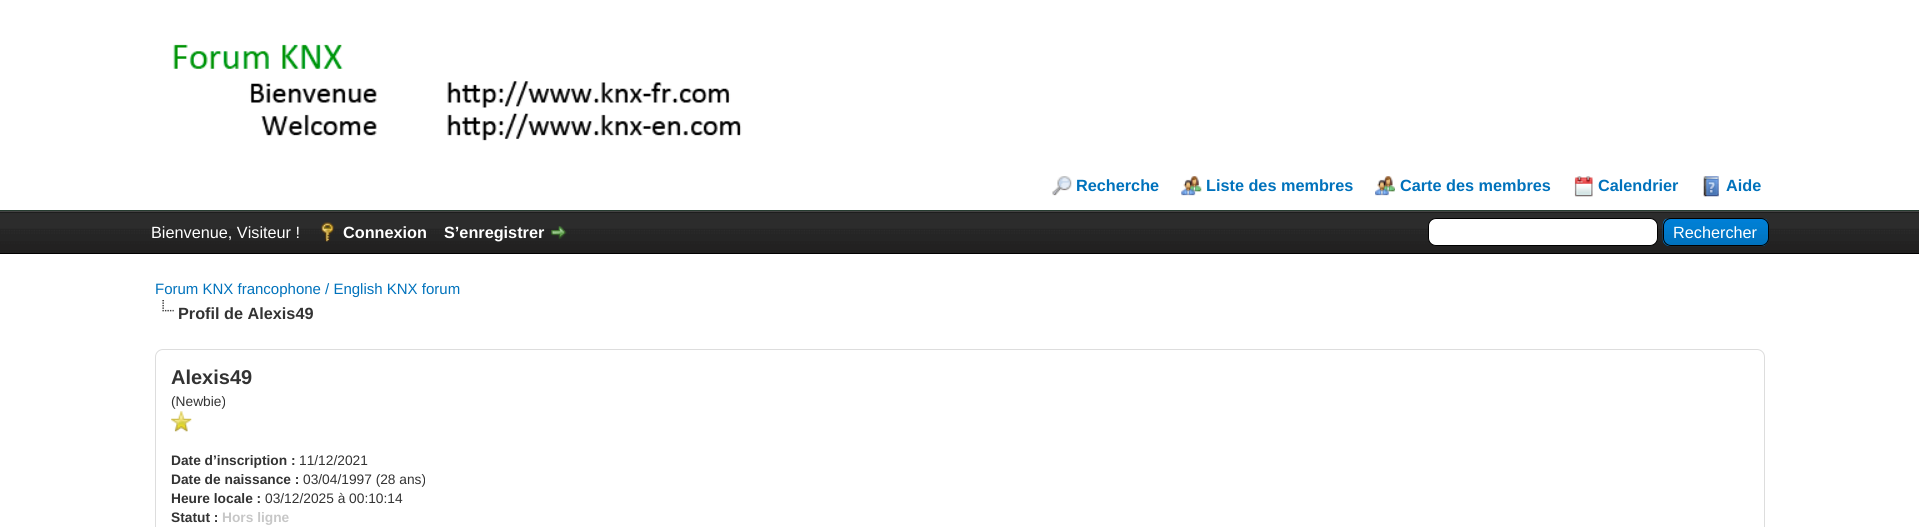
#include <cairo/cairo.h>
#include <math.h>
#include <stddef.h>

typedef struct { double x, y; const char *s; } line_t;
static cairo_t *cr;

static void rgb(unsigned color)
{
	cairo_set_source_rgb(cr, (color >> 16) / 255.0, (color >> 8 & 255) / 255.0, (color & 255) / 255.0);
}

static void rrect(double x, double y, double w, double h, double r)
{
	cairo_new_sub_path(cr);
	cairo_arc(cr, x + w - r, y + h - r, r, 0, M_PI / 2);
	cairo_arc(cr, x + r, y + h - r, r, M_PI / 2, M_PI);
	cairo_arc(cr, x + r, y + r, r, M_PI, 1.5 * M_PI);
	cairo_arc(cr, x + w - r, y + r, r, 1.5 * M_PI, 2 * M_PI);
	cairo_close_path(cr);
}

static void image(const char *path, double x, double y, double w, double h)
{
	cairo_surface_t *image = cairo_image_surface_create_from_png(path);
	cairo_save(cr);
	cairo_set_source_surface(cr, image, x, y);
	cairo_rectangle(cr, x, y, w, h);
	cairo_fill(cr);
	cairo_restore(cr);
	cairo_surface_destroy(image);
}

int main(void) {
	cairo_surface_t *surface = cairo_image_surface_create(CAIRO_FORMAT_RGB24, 1919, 527);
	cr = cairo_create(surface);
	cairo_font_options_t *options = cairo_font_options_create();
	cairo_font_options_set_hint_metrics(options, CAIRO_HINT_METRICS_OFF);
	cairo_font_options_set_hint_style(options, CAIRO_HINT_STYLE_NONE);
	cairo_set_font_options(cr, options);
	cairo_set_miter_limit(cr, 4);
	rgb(0xffffff);
	cairo_paint(cr);
	rgb(0x263c30);
	cairo_rectangle(cr, 0, 210, 1919, 1);
	cairo_fill(cr);
	image("img/1.png", 173, 44, 569, 97);
	image("img/2.png", 1052, 176, 20, 20);
	image("img/3.png", 1181, 176, 21, 20);
	image("img/4.png", 1375, 176, 20, 20);
	image("img/5.png", 1574, 176, 19, 21);
	image("img/6.png", 1703, 176, 16, 21);
	rgb(0x0f0f0f);
	cairo_rectangle(cr, 0, 212, 1919, 1);
	cairo_fill(cr);
	image("img/7.png", 0, 212, 1919, 41);
	rgb(0x444444);
	cairo_rectangle(cr, 0, 211, 1919, 1);
	cairo_fill(cr);
	rgb(0x000000);
	cairo_rectangle(cr, 0, 253, 1919, 1);
	cairo_fill(cr);
	image("img/8.png", 321, 222, 13, 20);
	image("img/9.png", 551, 226, 16, 13);
	rgb(0xffffff);
	rrect(1428.5, 218.5, 229, 27, 7.5);
	cairo_fill_preserve(cr);
	rgb(0x000000);
	cairo_set_line_width(cr, 1);
	cairo_stroke(cr);
	image("img/10.png", 1662, 218, 107, 29);
	rrect(1663.5, 218.5, 105, 27, 7.5);
	cairo_stroke(cr);
	image("img/11.png", 162, 300, 12, 12);
	rrect(155.5, 349.5, 1609, 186, 7.5);
	rgb(0xdddddd);
	cairo_stroke(cr);
	image("img/12.png", 171, 411, 21, 21);
	cairo_select_font_face(cr, "Liberation Sans", CAIRO_FONT_SLANT_NORMAL, CAIRO_FONT_WEIGHT_BOLD);
	cairo_set_font_size(cr, 16.25);
	rgb(0x0072bc);
	{
		static const line_t items[] = {
			{1076, 191, "Recherche"},
			{1206, 191, "Liste des membres"},
			{1400, 191, "Carte des membres"},
			{1598, 191, "Calendrier"},
			{1726, 191, "Aide"},
		};
		for (size_t i = 0; i < sizeof items / sizeof *items; i++) {
			cairo_move_to(cr, items[i].x, items[i].y);
			cairo_show_text(cr, items[i].s);
		}
	}
	cairo_select_font_face(cr, "Liberation Sans", CAIRO_FONT_SLANT_NORMAL, CAIRO_FONT_WEIGHT_NORMAL);
	rgb(0xffffff);
	cairo_move_to(cr, 151, 238);
	cairo_show_text(cr, "Bienvenue, Visiteur !");
	cairo_select_font_face(cr, "Liberation Sans", CAIRO_FONT_SLANT_NORMAL, CAIRO_FONT_WEIGHT_BOLD);
	cairo_move_to(cr, 343, 238);
	cairo_show_text(cr, "Connexion");
	cairo_move_to(cr, 444, 238);
	cairo_show_text(cr, "S’enregistrer");
	cairo_select_font_face(cr, "Liberation Sans", CAIRO_FONT_SLANT_NORMAL, CAIRO_FONT_WEIGHT_NORMAL);
	cairo_move_to(cr, 1673, 238);
	cairo_show_text(cr, "Rechercher");
	cairo_set_font_size(cr, 15);
	rgb(0x0072bc);
	cairo_move_to(cr, 155, 294);
	cairo_show_text(cr, "Forum KNX francophone / English KNX forum");
	cairo_select_font_face(cr, "Liberation Sans", CAIRO_FONT_SLANT_NORMAL, CAIRO_FONT_WEIGHT_BOLD);
	cairo_set_font_size(cr, 16.25);
	rgb(0x333333);
	cairo_move_to(cr, 178, 319);
	cairo_show_text(cr, "Profil de Alexis49");
	cairo_set_font_size(cr, 20);
	cairo_move_to(cr, 171, 384);
	cairo_show_text(cr, "Alexis49");
	cairo_select_font_face(cr, "Liberation Sans", CAIRO_FONT_SLANT_NORMAL, CAIRO_FONT_WEIGHT_NORMAL);
	cairo_set_font_size(cr, 13.75);
	cairo_move_to(cr, 171, 406);
	cairo_show_text(cr, "(Newbie)");
	cairo_select_font_face(cr, "Liberation Sans", CAIRO_FONT_SLANT_NORMAL, CAIRO_FONT_WEIGHT_BOLD);
	cairo_move_to(cr, 171, 465);
	cairo_show_text(cr, "Date d’inscription :");
	cairo_select_font_face(cr, "Liberation Sans", CAIRO_FONT_SLANT_NORMAL, CAIRO_FONT_WEIGHT_NORMAL);
	cairo_move_to(cr, 299, 465);
	cairo_show_text(cr, "11/12/2021");
	cairo_select_font_face(cr, "Liberation Sans", CAIRO_FONT_SLANT_NORMAL, CAIRO_FONT_WEIGHT_BOLD);
	cairo_move_to(cr, 171, 484);
	cairo_show_text(cr, "Date de naissance :");
	cairo_select_font_face(cr, "Liberation Sans", CAIRO_FONT_SLANT_NORMAL, CAIRO_FONT_WEIGHT_NORMAL);
	cairo_move_to(cr, 303, 484);
	cairo_show_text(cr, "03/04/1997 (28 ans)");
	cairo_select_font_face(cr, "Liberation Sans", CAIRO_FONT_SLANT_NORMAL, CAIRO_FONT_WEIGHT_BOLD);
	cairo_move_to(cr, 171, 503);
	cairo_show_text(cr, "Heure locale :");
	cairo_select_font_face(cr, "Liberation Sans", CAIRO_FONT_SLANT_NORMAL, CAIRO_FONT_WEIGHT_NORMAL);
	cairo_move_to(cr, 265, 503);
	cairo_show_text(cr, "03/12/2025 à 00:10:14");
	cairo_select_font_face(cr, "Liberation Sans", CAIRO_FONT_SLANT_NORMAL, CAIRO_FONT_WEIGHT_BOLD);
	cairo_move_to(cr, 171, 522);
	cairo_show_text(cr, "Statut :");
	rgb(0xc7c7c7);
	cairo_move_to(cr, 222, 522);
	cairo_show_text(cr, "Hors ligne");
	cairo_surface_write_to_png(surface, "page.png");
	cairo_font_options_destroy(options);
	cairo_destroy(cr);
	cairo_surface_destroy(surface);
	return 0;
}
